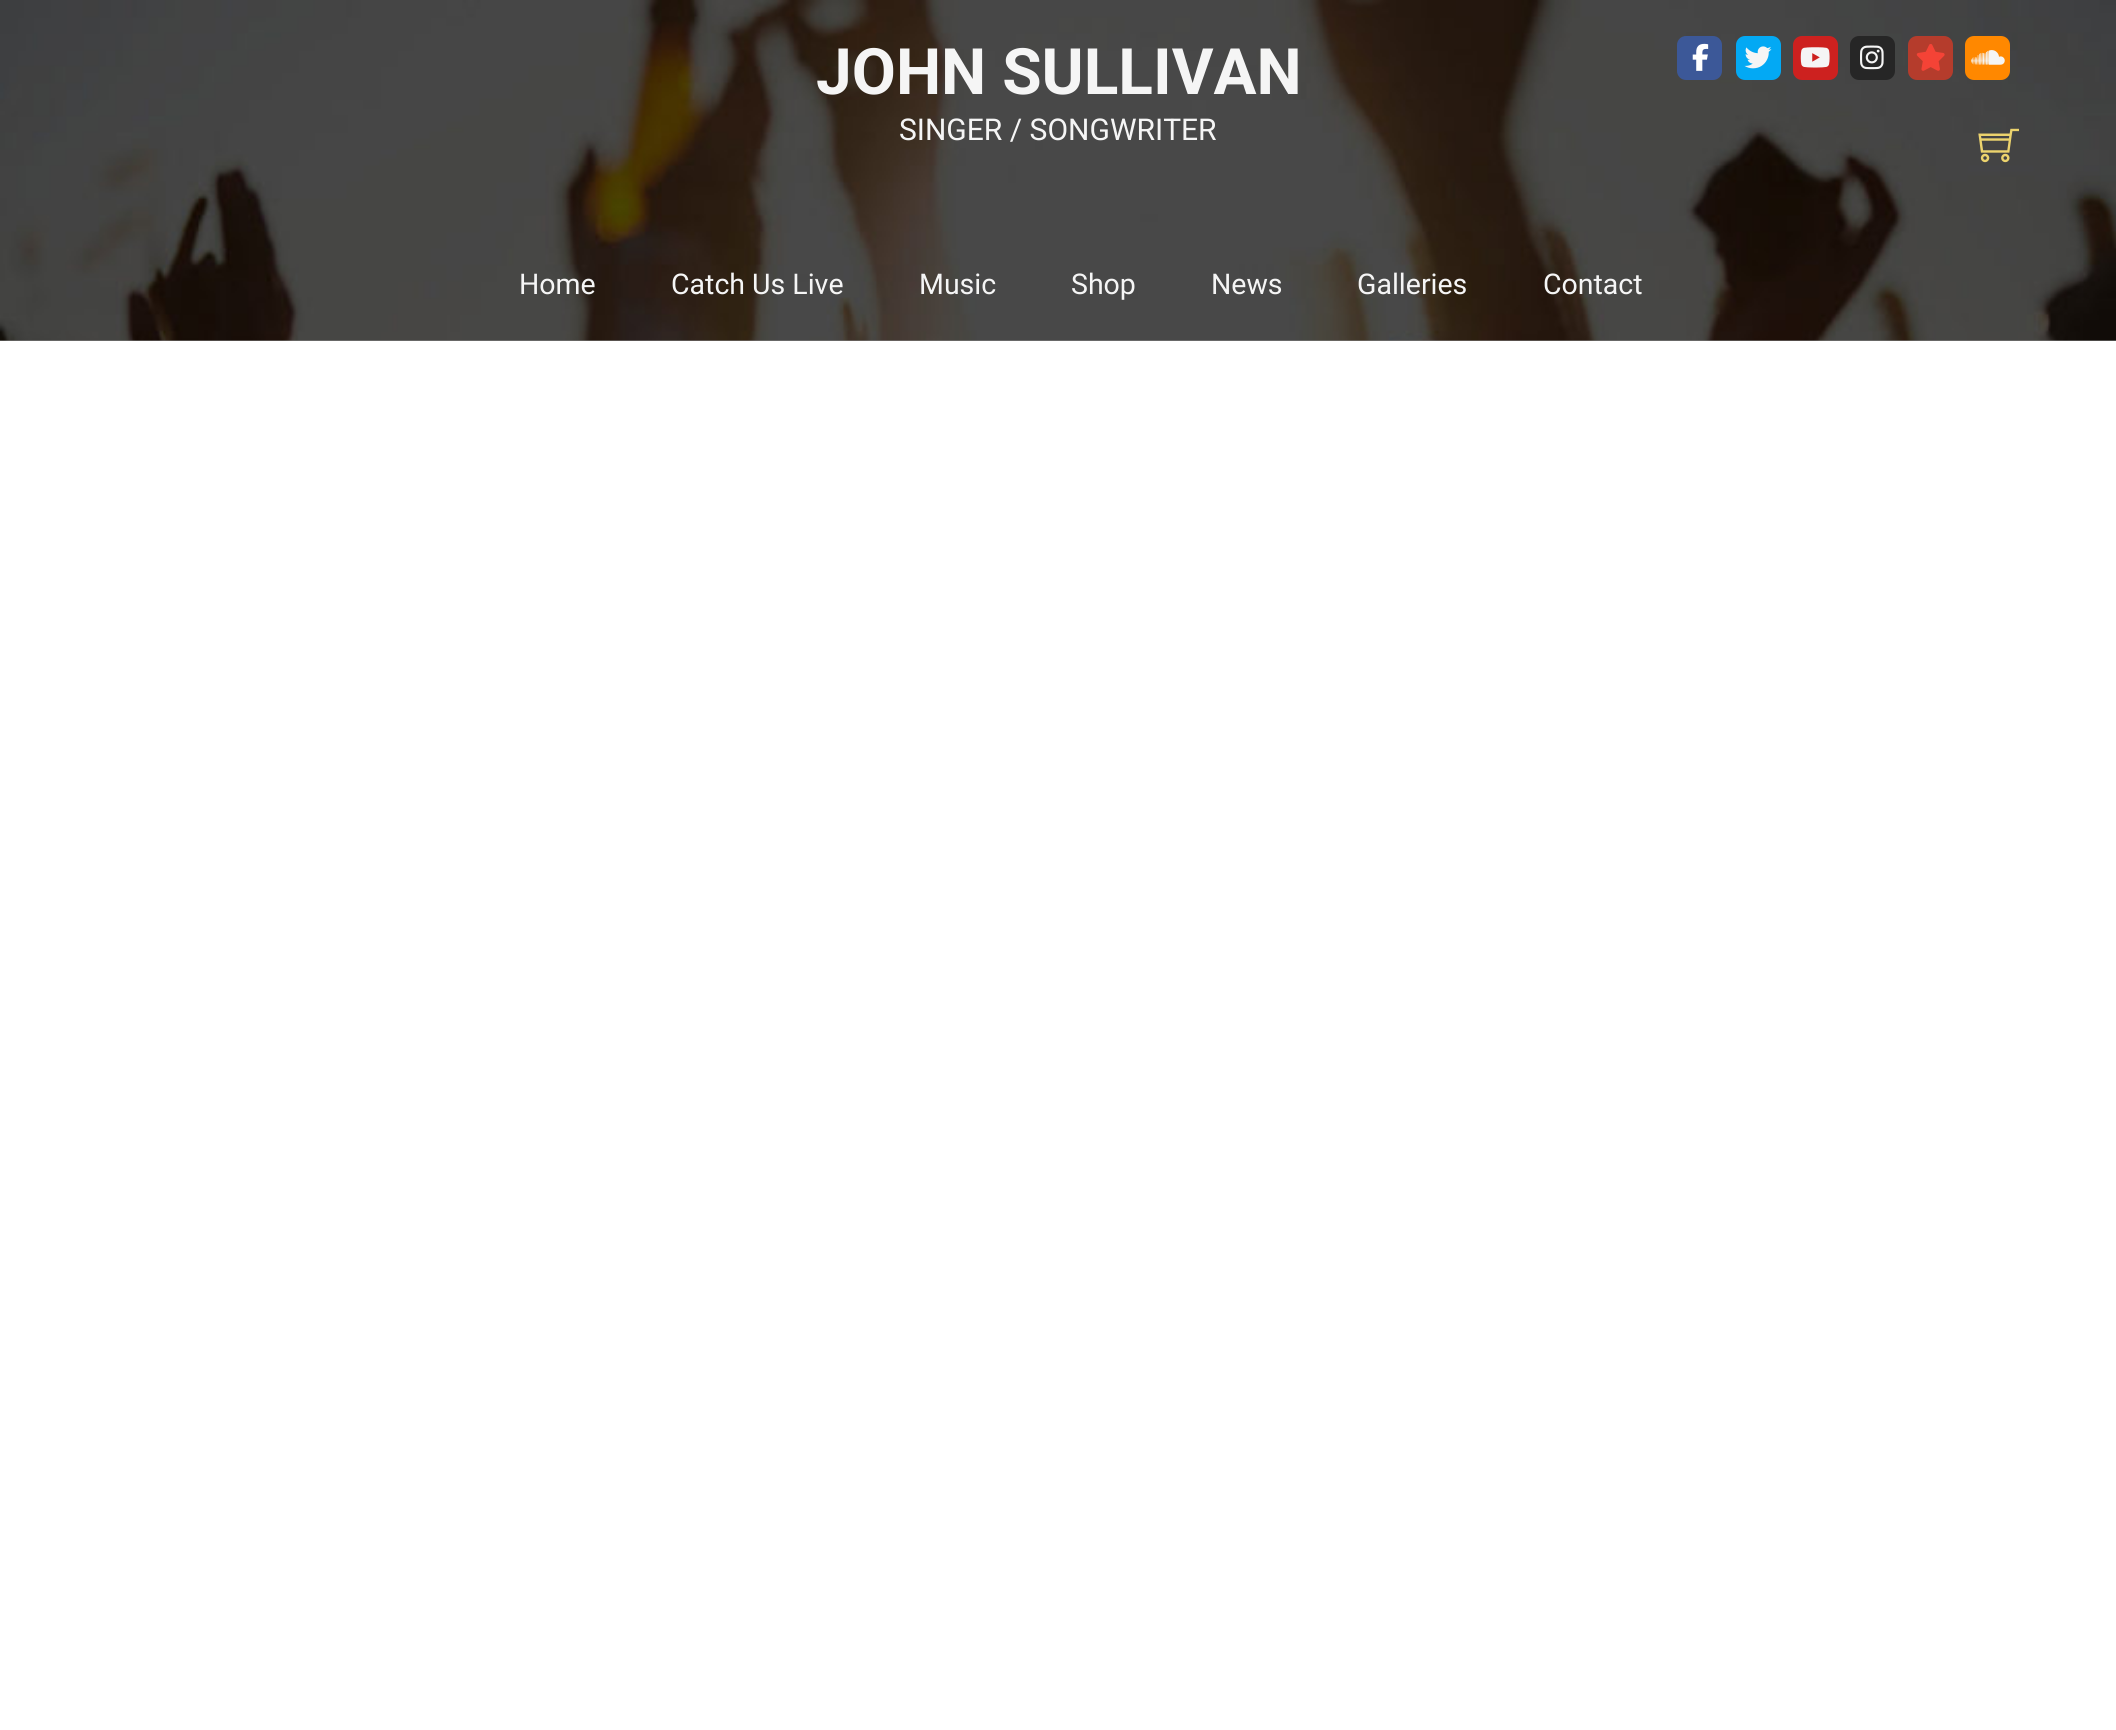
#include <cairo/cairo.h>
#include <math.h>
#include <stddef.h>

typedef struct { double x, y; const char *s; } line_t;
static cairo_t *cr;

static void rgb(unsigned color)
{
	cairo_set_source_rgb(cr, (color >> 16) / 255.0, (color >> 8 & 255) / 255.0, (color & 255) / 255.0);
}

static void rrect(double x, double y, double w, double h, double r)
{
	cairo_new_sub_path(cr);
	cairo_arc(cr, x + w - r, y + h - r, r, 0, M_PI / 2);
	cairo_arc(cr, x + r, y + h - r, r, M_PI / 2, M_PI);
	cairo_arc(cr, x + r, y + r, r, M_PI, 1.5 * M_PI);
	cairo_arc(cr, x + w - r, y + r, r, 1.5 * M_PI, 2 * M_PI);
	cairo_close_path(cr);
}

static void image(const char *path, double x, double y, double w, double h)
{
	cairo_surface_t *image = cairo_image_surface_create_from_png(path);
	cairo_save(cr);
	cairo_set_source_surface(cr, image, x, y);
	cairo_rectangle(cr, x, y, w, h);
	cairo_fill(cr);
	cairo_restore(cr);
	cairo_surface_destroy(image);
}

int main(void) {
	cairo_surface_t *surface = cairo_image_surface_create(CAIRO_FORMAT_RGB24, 2116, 1730);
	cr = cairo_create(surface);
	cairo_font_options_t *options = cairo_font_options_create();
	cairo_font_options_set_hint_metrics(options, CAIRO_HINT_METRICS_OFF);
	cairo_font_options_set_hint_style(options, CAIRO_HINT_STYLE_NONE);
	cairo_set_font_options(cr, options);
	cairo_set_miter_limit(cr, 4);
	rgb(0xffffff);
	cairo_paint(cr);
	rgb(0x8a8a8a);
	cairo_rectangle(cr, 0, 340, 2116, 1);
	cairo_fill(cr);
	image("img/1.png", 0, 0, 2116, 341);
	rgb(0x3c5898);
	rrect(1677, 36, 45, 44, 9);
	cairo_fill(cr);
	image("img/2.png", 1692, 43, 17, 28);
	rgb(0x03a9f4);
	rrect(1736, 36, 45, 44, 9);
	cairo_fill(cr);
	image("img/3.png", 1744, 46, 28, 23);
	rgb(0xcd211f);
	rrect(1793, 36, 45, 44, 9);
	cairo_fill(cr);
	image("img/4.png", 1800, 47, 30, 21);
	rgb(0x262626);
	rrect(1850, 36, 45, 44, 9);
	cairo_fill(cr);
	image("img/5.png", 1860, 45, 24, 25);
	rgb(0xb53c2c);
	rrect(1908, 36, 45, 44, 9);
	cairo_fill(cr);
	image("img/6.png", 1916, 44, 29, 27);
	rgb(0xff8800);
	rrect(1965, 36, 45, 44, 9);
	cairo_fill(cr);
	image("img/7.png", 1971, 50, 34, 15);
	image("img/8.png", 1978, 128, 41, 35);
	cairo_select_font_face(cr, "Roboto", CAIRO_FONT_SLANT_NORMAL, CAIRO_FONT_WEIGHT_BOLD);
	cairo_set_font_size(cr, 64);
	rgb(0xf5f5f5);
	cairo_move_to(cr, 816, 94);
	cairo_show_text(cr, "JOHN SULLIVAN");
	cairo_select_font_face(cr, "Roboto", CAIRO_FONT_SLANT_NORMAL, CAIRO_FONT_WEIGHT_NORMAL);
	cairo_set_font_size(cr, 30);
	cairo_move_to(cr, 899, 140);
	cairo_show_text(cr, "SINGER / SONGWRITER");
	cairo_set_font_size(cr, 28.5);
	{
		static const line_t items[] = {
			{519, 294, "Home"},
			{671, 294, "Catch Us Live"},
			{919, 294, "Music"},
			{1071, 294, "Shop"},
			{1211, 294, "News"},
			{1357, 294, "Galleries"},
			{1543, 294, "Contact"},
		};
		for (size_t i = 0; i < sizeof items / sizeof *items; i++) {
			cairo_move_to(cr, items[i].x, items[i].y);
			cairo_show_text(cr, items[i].s);
		}
	}
	cairo_surface_write_to_png(surface, "page.png");
	cairo_font_options_destroy(options);
	cairo_destroy(cr);
	cairo_surface_destroy(surface);
	return 0;
}
